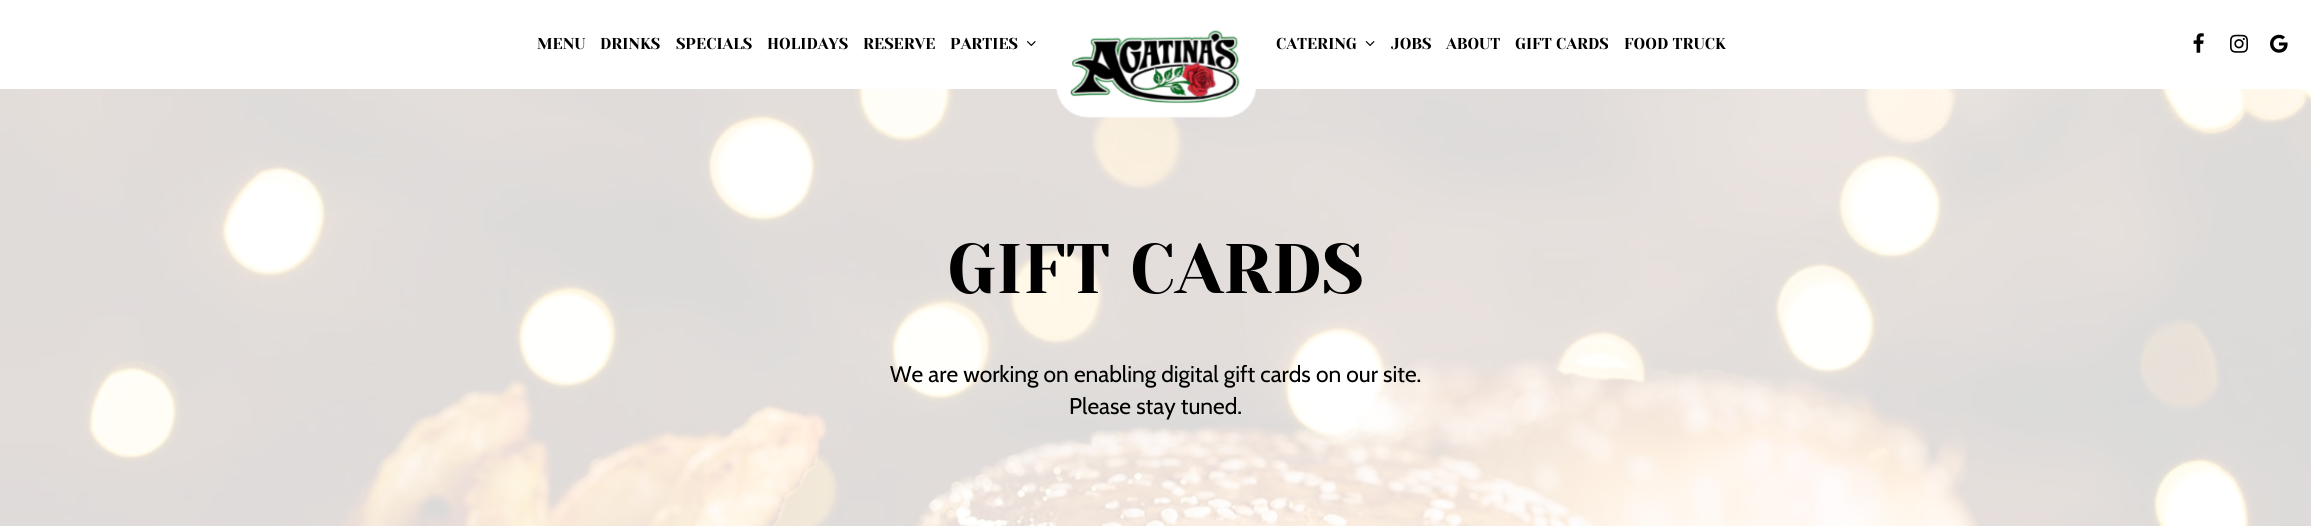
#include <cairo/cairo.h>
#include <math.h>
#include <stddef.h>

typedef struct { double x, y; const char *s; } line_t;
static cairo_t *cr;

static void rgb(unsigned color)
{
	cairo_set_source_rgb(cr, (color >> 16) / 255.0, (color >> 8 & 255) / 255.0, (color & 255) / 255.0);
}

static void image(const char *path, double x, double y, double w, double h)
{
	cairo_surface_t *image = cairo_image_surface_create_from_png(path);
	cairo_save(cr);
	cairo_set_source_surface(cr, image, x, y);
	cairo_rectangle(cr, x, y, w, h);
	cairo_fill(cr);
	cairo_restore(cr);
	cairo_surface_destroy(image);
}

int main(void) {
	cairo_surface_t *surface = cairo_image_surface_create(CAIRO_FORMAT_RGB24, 2311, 526);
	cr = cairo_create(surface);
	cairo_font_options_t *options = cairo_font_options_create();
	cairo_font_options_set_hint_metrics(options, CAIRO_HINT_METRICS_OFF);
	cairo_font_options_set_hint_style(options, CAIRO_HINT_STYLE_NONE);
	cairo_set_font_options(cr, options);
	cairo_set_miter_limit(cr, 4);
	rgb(0xffffff);
	cairo_paint(cr);
	image("img/1.png", 1027, 41, 9, 6);
	image("img/7.png", 0, 89, 2311, 437);
	image("img/2.png", 1056, 30, 201, 88);
	image("img/3.png", 1365, 41, 10, 5);
	image("img/4.png", 2193, 33, 11, 20);
	image("img/5.png", 2230, 34, 18, 19);
	image("img/6.png", 2270, 34, 18, 19);
	cairo_select_font_face(cr, "Yeseva One", CAIRO_FONT_SLANT_NORMAL, CAIRO_FONT_WEIGHT_NORMAL);
	cairo_set_font_size(cr, 15.75);
	rgb(0x000000);
	{
		static const line_t items[] = {
			{537, 49, "MENU"},
			{600, 49, "DRINKS"},
			{676, 49, "SPECIALS"},
			{767, 49, "HOLIDAYS"},
			{863, 49, "RESERVE"},
			{950, 49, "PARTIES"},
			{1276, 49, "CATERING"},
			{1391, 49, "JOBS"},
			{1446, 49, "ABOUT"},
			{1515, 49, "GIFT CARDS"},
			{1624, 49, "FOOD TRUCK"},
		};
		for (size_t i = 0; i < sizeof items / sizeof *items; i++) {
			cairo_move_to(cr, items[i].x, items[i].y);
			cairo_show_text(cr, items[i].s);
		}
	}
	cairo_set_font_size(cr, 70);
	cairo_move_to(cr, 947, 293);
	cairo_show_text(cr, "GIFT CARDS");
	cairo_select_font_face(cr, "Cabin", CAIRO_FONT_SLANT_NORMAL, CAIRO_FONT_WEIGHT_NORMAL);
	cairo_set_font_size(cr, 22.75);
	cairo_move_to(cr, 890, 382);
	cairo_show_text(cr, "We are working on enabling digital gift cards on our site.");
	cairo_move_to(cr, 1069, 414);
	cairo_show_text(cr, "Please stay tuned.");
	cairo_surface_write_to_png(surface, "page.png");
	cairo_font_options_destroy(options);
	cairo_destroy(cr);
	cairo_surface_destroy(surface);
	return 0;
}
